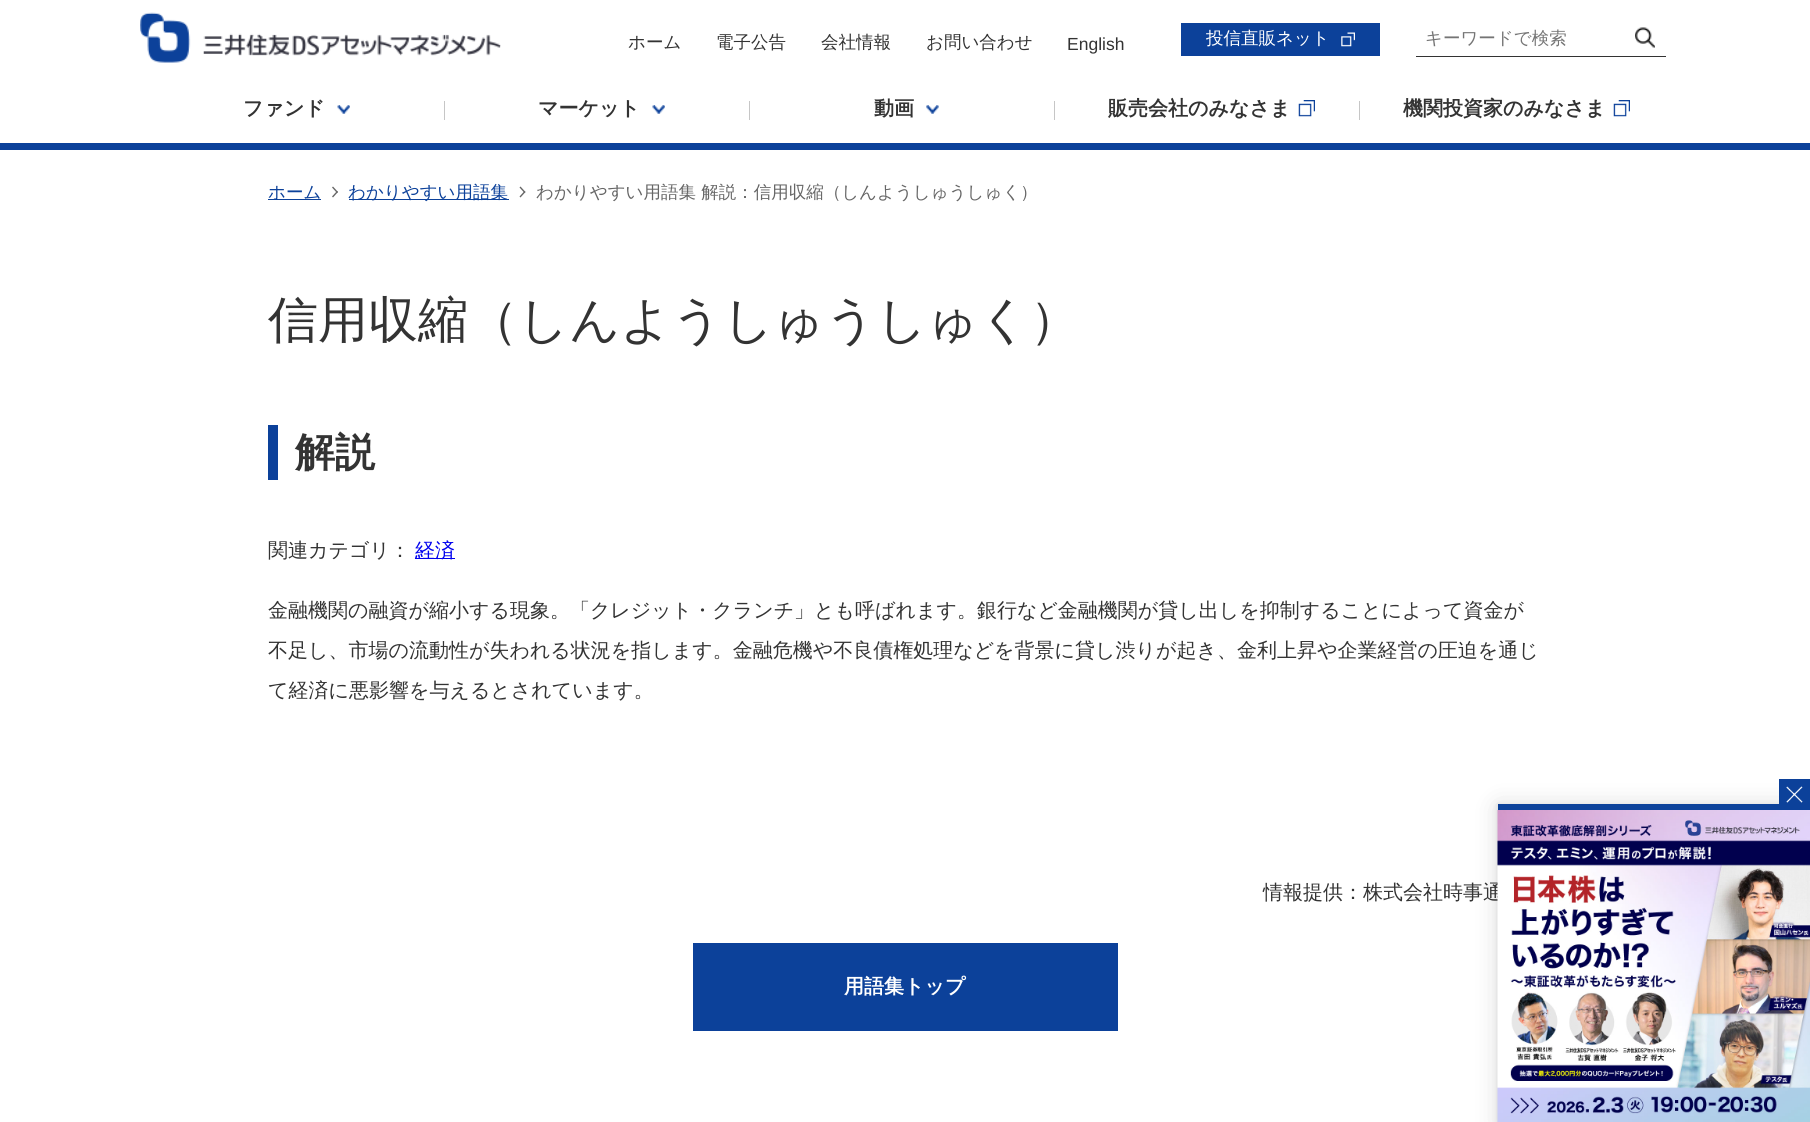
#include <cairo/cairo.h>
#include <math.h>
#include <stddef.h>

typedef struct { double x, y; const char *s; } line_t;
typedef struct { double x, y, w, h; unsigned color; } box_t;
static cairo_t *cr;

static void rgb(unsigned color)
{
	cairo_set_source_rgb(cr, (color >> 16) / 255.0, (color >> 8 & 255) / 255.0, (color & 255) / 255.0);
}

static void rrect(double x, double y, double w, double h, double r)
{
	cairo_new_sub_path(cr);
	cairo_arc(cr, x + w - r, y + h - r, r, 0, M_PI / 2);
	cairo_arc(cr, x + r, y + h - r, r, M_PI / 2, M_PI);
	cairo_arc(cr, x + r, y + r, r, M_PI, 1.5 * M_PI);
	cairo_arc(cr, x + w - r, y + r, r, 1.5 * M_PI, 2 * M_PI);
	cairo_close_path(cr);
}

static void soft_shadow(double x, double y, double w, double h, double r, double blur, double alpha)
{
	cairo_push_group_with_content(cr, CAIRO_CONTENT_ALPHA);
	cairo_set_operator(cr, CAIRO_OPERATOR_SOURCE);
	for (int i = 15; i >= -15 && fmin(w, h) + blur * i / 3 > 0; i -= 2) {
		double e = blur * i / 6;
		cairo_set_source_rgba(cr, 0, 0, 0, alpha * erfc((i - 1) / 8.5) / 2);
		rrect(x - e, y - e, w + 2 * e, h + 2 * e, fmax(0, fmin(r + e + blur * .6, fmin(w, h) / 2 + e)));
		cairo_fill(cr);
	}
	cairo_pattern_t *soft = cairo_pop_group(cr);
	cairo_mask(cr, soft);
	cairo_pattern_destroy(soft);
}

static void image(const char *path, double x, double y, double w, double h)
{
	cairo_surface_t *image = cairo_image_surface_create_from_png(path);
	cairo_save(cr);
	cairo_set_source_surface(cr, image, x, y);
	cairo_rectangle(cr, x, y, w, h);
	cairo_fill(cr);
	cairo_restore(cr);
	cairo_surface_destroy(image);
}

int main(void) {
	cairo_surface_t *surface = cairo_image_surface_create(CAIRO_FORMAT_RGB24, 1810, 1122);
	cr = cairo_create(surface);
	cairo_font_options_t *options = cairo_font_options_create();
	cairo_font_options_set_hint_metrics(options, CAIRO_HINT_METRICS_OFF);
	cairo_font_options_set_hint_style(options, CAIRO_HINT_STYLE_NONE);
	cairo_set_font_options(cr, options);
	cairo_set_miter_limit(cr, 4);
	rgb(0xffffff);
	cairo_paint(cr);
	rgb(0x0c419a);
	cairo_rectangle(cr, 0, 143, 1810, 7);
	cairo_fill(cr);
	image("img/1.png", 140, 12, 361, 51);
	cairo_rectangle(cr, 1181, 23, 199, 33);
	cairo_fill(cr);
	image("img/2.png", 1341, 32, 14, 15);
	rgb(0x333333);
	cairo_rectangle(cr, 1416, 56, 250, 1);
	cairo_fill(cr);
	image("img/3.png", 1635, 27, 20, 21);
	image("img/4.png", 337, 105, 13, 9);
	rgb(0xc6c6c6);
	cairo_rectangle(cr, 444, 101, 1, 19);
	cairo_fill(cr);
	image("img/5.png", 652, 105, 13, 9);
	cairo_rectangle(cr, 749, 101, 1, 19);
	cairo_fill(cr);
	image("img/6.png", 926, 105, 13, 9);
	cairo_rectangle(cr, 1054, 101, 1, 19);
	cairo_fill(cr);
	image("img/7.png", 1298, 100, 17, 17);
	cairo_rectangle(cr, 1359, 101, 1, 19);
	cairo_fill(cr);
	image("img/7.png", 1613, 100, 17, 17);
	rgb(0x0c419a);
	cairo_rectangle(cr, 268, 199, 53, 1);
	cairo_fill(cr);
	rgb(0x666666);
	cairo_new_path(cr);
	cairo_move_to(cr, 333, 186.5);
	cairo_line_to(cr, 338, 192);
	cairo_line_to(cr, 337, 193);
	cairo_line_to(cr, 332, 187.5);
	cairo_close_path(cr);
	cairo_fill(cr);
	cairo_new_path(cr);
	cairo_move_to(cr, 337, 191);
	cairo_line_to(cr, 338, 192);
	cairo_line_to(cr, 333, 197.5);
	cairo_line_to(cr, 332, 196.5);
	cairo_close_path(cr);
	cairo_fill(cr);
	rgb(0x0c419a);
	cairo_rectangle(cr, 349, 199, 160, 1);
	cairo_fill(cr);
	rgb(0x666666);
	cairo_new_path(cr);
	cairo_move_to(cr, 520.5, 186.5);
	cairo_line_to(cr, 525.5, 192);
	cairo_line_to(cr, 524.5, 193);
	cairo_line_to(cr, 519.5, 187.5);
	cairo_close_path(cr);
	cairo_fill(cr);
	cairo_new_path(cr);
	cairo_move_to(cr, 524.5, 191);
	cairo_line_to(cr, 525.5, 192);
	cairo_line_to(cr, 520.5, 197.5);
	cairo_line_to(cr, 519.5, 196.5);
	cairo_close_path(cr);
	cairo_fill(cr);
	{
		static const box_t items[] = {
			{268, 425, 10, 55, 0x0c419a},
			{415, 558, 40, 1, 0x0000ee},
			{693, 943, 425, 88, 0x0c419a},
		};
		for (size_t i = 0; i < sizeof items / sizeof *items; i++) {
			rgb(items[i].color);
			cairo_rectangle(cr, items[i].x, items[i].y, items[i].w, items[i].h);
			cairo_fill(cr);
		}
	}
	rgb(0x000000);
	soft_shadow(1498, 805, 312, 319, 0, 3, 0.12);
	soft_shadow(1498, 806, 312, 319, 0, 12.5, 0.14);
	rgb(0x0c419a);
	cairo_rectangle(cr, 1498, 804, 281, 6);
	cairo_fill(cr);
	cairo_rectangle(cr, 1779, 779, 31, 31);
	cairo_fill(cr);
	image("img/8.png", 1786, 786, 17, 17);
	cairo_select_font_face(cr, "WenQuanYi Zen Hei Medium", CAIRO_FONT_SLANT_NORMAL, CAIRO_FONT_WEIGHT_NORMAL);
	cairo_set_font_size(cr, 17.5);
	rgb(0x333333);
	{
		static const line_t items[] = {
			{628, 48, "ホーム"},
			{716, 48, "電子公告"},
			{821, 48, "会社情報"},
			{926, 48, "お問い合わせ"},
		};
		for (size_t i = 0; i < sizeof items / sizeof *items; i++) {
			cairo_move_to(cr, items[i].x, items[i].y);
			cairo_show_text(cr, items[i].s);
		}
	}
	cairo_select_font_face(cr, "Liberation Sans", CAIRO_FONT_SLANT_NORMAL, CAIRO_FONT_WEIGHT_NORMAL);
	cairo_move_to(cr, 1067, 50);
	cairo_show_text(cr, "English");
	cairo_select_font_face(cr, "WenQuanYi Zen Hei Medium", CAIRO_FONT_SLANT_NORMAL, CAIRO_FONT_WEIGHT_NORMAL);
	rgb(0xffffff);
	cairo_move_to(cr, 1206, 44);
	cairo_show_text(cr, "投信直販ネット");
	rgb(0x757575);
	cairo_move_to(cr, 1425, 44);
	cairo_show_text(cr, "キーワードで検索");
	cairo_select_font_face(cr, "WenQuanYi Zen Hei", CAIRO_FONT_SLANT_NORMAL, CAIRO_FONT_WEIGHT_BOLD);
	cairo_set_font_size(cr, 20);
	rgb(0x333333);
	{
		static const line_t items[] = {
			{243, 115, "ファンド"},
			{538, 115, "マーケット"},
			{874, 115, "動画"},
			{1108, 115, "販売会社のみなさま"},
			{1403, 115, "機関投資家のみなさま"},
		};
		for (size_t i = 0; i < sizeof items / sizeof *items; i++) {
			cairo_move_to(cr, items[i].x, items[i].y);
			cairo_show_text(cr, items[i].s);
		}
	}
	cairo_select_font_face(cr, "WenQuanYi Zen Hei Medium", CAIRO_FONT_SLANT_NORMAL, CAIRO_FONT_WEIGHT_NORMAL);
	cairo_set_font_size(cr, 17.5);
	rgb(0x0c419a);
	cairo_move_to(cr, 268, 198);
	cairo_show_text(cr, "ホーム");
	cairo_move_to(cr, 348, 198);
	cairo_show_text(cr, "わかりやすい用語集");
	rgb(0x666666);
	cairo_move_to(cr, 536, 198);
	cairo_show_text(cr, "わかりやすい用語集 解説：信用収縮（しんようしゅうしゅく）");
	cairo_set_font_size(cr, 50);
	rgb(0x333333);
	cairo_move_to(cr, 268, 337);
	cairo_show_text(cr, "信用収縮（しんようしゅうしゅく）");
	cairo_select_font_face(cr, "WenQuanYi Zen Hei", CAIRO_FONT_SLANT_NORMAL, CAIRO_FONT_WEIGHT_BOLD);
	cairo_set_font_size(cr, 40);
	cairo_move_to(cr, 295, 466);
	cairo_show_text(cr, "解説");
	cairo_select_font_face(cr, "WenQuanYi Zen Hei Medium", CAIRO_FONT_SLANT_NORMAL, CAIRO_FONT_WEIGHT_NORMAL);
	cairo_set_font_size(cr, 20);
	cairo_move_to(cr, 268, 557);
	cairo_show_text(cr, "関連カテゴリ：");
	rgb(0x0000ee);
	cairo_move_to(cr, 415, 557);
	cairo_show_text(cr, "経済");
	rgb(0x333333);
	{
		static const line_t items[] = {
			{268, 617, "金融機関の融資が縮小する現象。「クレジット・クランチ」とも呼ばれます。銀行など金融機関が貸し出しを抑制することによって資金が"},
			{268, 657, "不足し、市場の流動性が失われる状況を指します。金融危機や不良債権処理などを背景に貸し渋りが起き、金利上昇や企業経営の圧迫を通じ"},
			{268, 697, "て経済に悪影響を与えるとされています。"},
			{1263, 899, "情報提供：株式会社時事通"},
		};
		for (size_t i = 0; i < sizeof items / sizeof *items; i++) {
			cairo_move_to(cr, items[i].x, items[i].y);
			cairo_show_text(cr, items[i].s);
		}
	}
	cairo_select_font_face(cr, "WenQuanYi Zen Hei", CAIRO_FONT_SLANT_NORMAL, CAIRO_FONT_WEIGHT_BOLD);
	rgb(0xffffff);
	cairo_move_to(cr, 844, 993);
	cairo_show_text(cr, "用語集トップ");
	image("img/9.png", 1497, 810, 313, 312);
	cairo_surface_write_to_png(surface, "page.png");
	cairo_font_options_destroy(options);
	cairo_destroy(cr);
	cairo_surface_destroy(surface);
	return 0;
}
